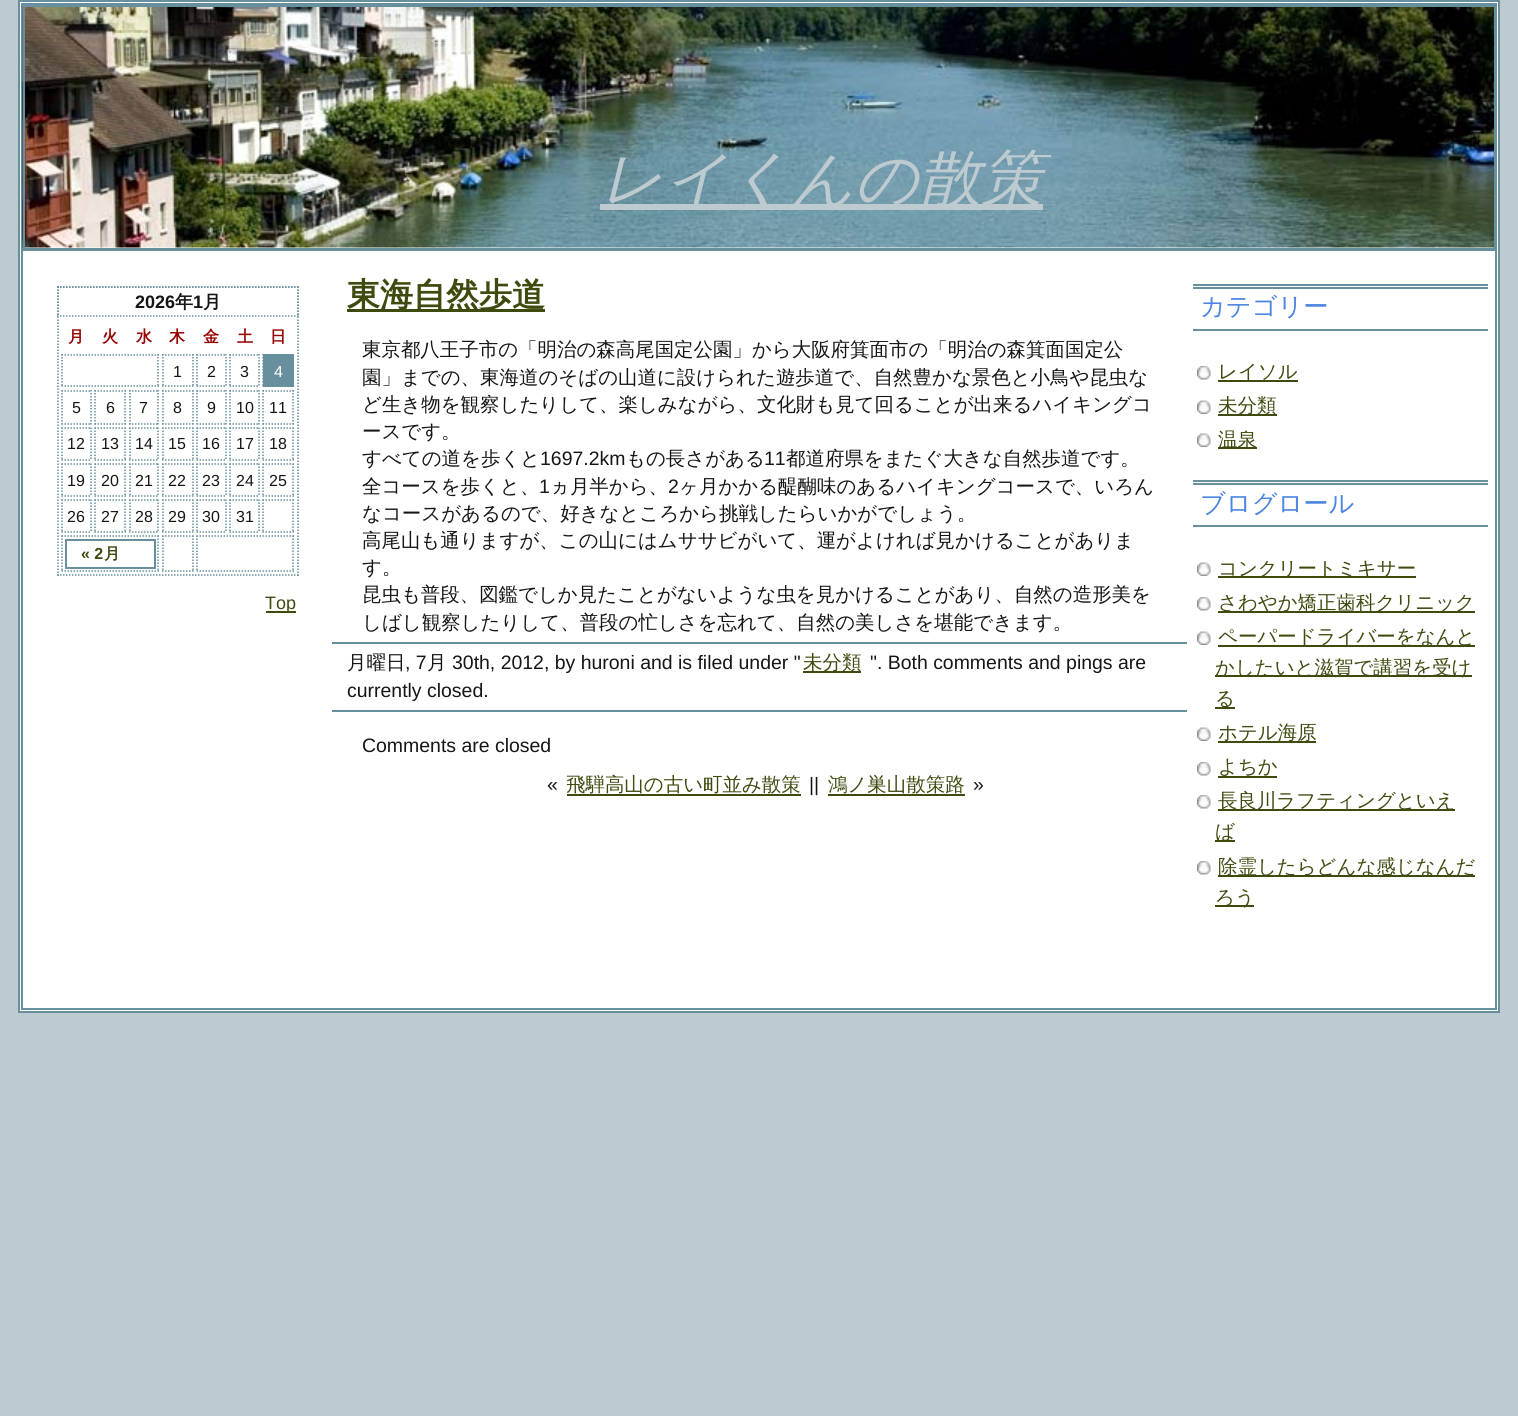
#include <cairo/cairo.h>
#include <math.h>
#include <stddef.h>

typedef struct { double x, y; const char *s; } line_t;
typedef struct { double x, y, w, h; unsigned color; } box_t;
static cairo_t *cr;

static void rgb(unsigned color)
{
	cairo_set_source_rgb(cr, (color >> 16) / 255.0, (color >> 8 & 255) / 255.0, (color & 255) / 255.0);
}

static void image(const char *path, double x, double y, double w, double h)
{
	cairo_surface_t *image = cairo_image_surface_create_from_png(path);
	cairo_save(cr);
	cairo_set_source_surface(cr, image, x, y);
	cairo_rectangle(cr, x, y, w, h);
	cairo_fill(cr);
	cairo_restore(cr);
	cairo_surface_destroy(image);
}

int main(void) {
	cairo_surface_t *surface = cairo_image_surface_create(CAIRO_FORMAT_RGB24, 1518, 1416);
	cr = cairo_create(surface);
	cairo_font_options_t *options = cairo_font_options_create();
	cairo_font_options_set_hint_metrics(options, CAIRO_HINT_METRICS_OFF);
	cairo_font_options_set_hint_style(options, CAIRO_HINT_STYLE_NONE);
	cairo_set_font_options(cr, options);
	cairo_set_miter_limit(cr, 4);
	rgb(0xbdcbd0);
	cairo_paint(cr);
	rgb(0xffffff);
	cairo_rectangle(cr, 19, 1, 1480, 1011);
	cairo_fill_preserve(cr);
	rgb(0x688f9e);
	cairo_stroke(cr);
	cairo_rectangle(cr, 22, 4, 1474, 1005);
	cairo_stroke(cr);
	image("img/1.png", 22, 6, 1472, 242);
	{
		static const box_t items[] = {
			{23, 5, 1473, 2, 0x688f9e},
			{1494, 5, 1, 246, 0x688f9e},
			{23, 248, 1473, 3, 0x688f9e},
			{23, 5, 2, 246, 0x688f9e},
			{600, 204, 443, 6, 0xbdcbd0},
		};
		for (size_t i = 0; i < sizeof items / sizeof *items; i++) {
			rgb(items[i].color);
			cairo_rectangle(cr, items[i].x, items[i].y, items[i].w, items[i].h);
			cairo_fill(cr);
		}
	}
	cairo_new_path(cr);
	cairo_move_to(cr, 57, 287);
	cairo_line_to(cr, 298.5, 287);
	rgb(0x688f9e);
	cairo_set_line_width(cr, 1.5);
	cairo_set_dash(cr, (double[]){1.5, 1.5}, 2, 0);
	cairo_stroke(cr);
	cairo_new_path(cr);
	cairo_move_to(cr, 298, 286.5);
	cairo_line_to(cr, 298, 576);
	cairo_stroke(cr);
	cairo_new_path(cr);
	cairo_move_to(cr, 57, 575);
	cairo_line_to(cr, 298.5, 575);
	cairo_stroke(cr);
	cairo_new_path(cr);
	cairo_move_to(cr, 58, 286.5);
	cairo_line_to(cr, 58, 576);
	cairo_stroke(cr);
	cairo_new_path(cr);
	cairo_move_to(cr, 57, 287);
	cairo_line_to(cr, 298.5, 287);
	cairo_stroke(cr);
	cairo_new_path(cr);
	cairo_move_to(cr, 298, 286.5);
	cairo_line_to(cr, 298, 316.5);
	cairo_stroke(cr);
	cairo_new_path(cr);
	cairo_move_to(cr, 57, 316);
	cairo_line_to(cr, 298.5, 316);
	cairo_stroke(cr);
	cairo_new_path(cr);
	cairo_move_to(cr, 58, 286.5);
	cairo_line_to(cr, 58, 316.5);
	cairo_stroke(cr);
	cairo_new_path(cr);
	cairo_move_to(cr, 61.5, 355);
	cairo_line_to(cr, 159, 355);
	cairo_stroke(cr);
	cairo_new_path(cr);
	cairo_move_to(cr, 158, 354);
	cairo_line_to(cr, 158, 387);
	cairo_stroke(cr);
	cairo_new_path(cr);
	cairo_move_to(cr, 61.5, 386);
	cairo_line_to(cr, 159, 386);
	cairo_stroke(cr);
	cairo_new_path(cr);
	cairo_move_to(cr, 62, 354);
	cairo_line_to(cr, 62, 387);
	cairo_stroke(cr);
	cairo_new_path(cr);
	cairo_move_to(cr, 162, 355);
	cairo_line_to(cr, 193.5, 355);
	cairo_move_to(cr, 193, 354);
	cairo_line_to(cr, 193, 387);
	cairo_move_to(cr, 162, 386);
	cairo_line_to(cr, 193.5, 386);
	cairo_move_to(cr, 163, 354);
	cairo_line_to(cr, 163, 387);
	cairo_move_to(cr, 196.5, 355);
	cairo_line_to(cr, 226.5, 355);
	cairo_stroke(cr);
	cairo_new_path(cr);
	cairo_move_to(cr, 226, 354);
	cairo_line_to(cr, 226, 387);
	cairo_move_to(cr, 196.5, 386);
	cairo_line_to(cr, 226.5, 386);
	cairo_move_to(cr, 197, 354);
	cairo_line_to(cr, 197, 387);
	cairo_move_to(cr, 229.5, 355);
	cairo_line_to(cr, 259.5, 355);
	cairo_stroke(cr);
	cairo_new_path(cr);
	cairo_move_to(cr, 259, 354);
	cairo_line_to(cr, 259, 387);
	cairo_move_to(cr, 229.5, 386);
	cairo_line_to(cr, 259.5, 386);
	cairo_move_to(cr, 230, 354);
	cairo_line_to(cr, 230, 387);
	cairo_stroke(cr);
	cairo_rectangle(cr, 263, 354, 31, 33);
	cairo_fill(cr);
	cairo_new_path(cr);
	cairo_move_to(cr, 262.5, 355);
	cairo_line_to(cr, 294, 355);
	cairo_move_to(cr, 262.5, 386);
	cairo_line_to(cr, 294, 386);
	cairo_move_to(cr, 263, 354);
	cairo_line_to(cr, 263, 387);
	cairo_stroke(cr);
	cairo_new_path(cr);
	cairo_move_to(cr, 61.5, 391);
	cairo_line_to(cr, 91.5, 391);
	cairo_move_to(cr, 91, 390);
	cairo_line_to(cr, 91, 424.5);
	cairo_move_to(cr, 61.5, 424);
	cairo_line_to(cr, 91.5, 424);
	cairo_move_to(cr, 62, 390);
	cairo_line_to(cr, 62, 424.5);
	cairo_stroke(cr);
	cairo_new_path(cr);
	cairo_move_to(cr, 94.5, 391);
	cairo_line_to(cr, 126, 391);
	cairo_move_to(cr, 125, 390);
	cairo_line_to(cr, 125, 424.5);
	cairo_move_to(cr, 94.5, 424);
	cairo_line_to(cr, 126, 424);
	cairo_move_to(cr, 95, 390);
	cairo_line_to(cr, 95, 424.5);
	cairo_stroke(cr);
	cairo_new_path(cr);
	cairo_move_to(cr, 129, 391);
	cairo_line_to(cr, 159, 391);
	cairo_move_to(cr, 158, 390);
	cairo_line_to(cr, 158, 424.5);
	cairo_move_to(cr, 129, 424);
	cairo_line_to(cr, 159, 424);
	cairo_move_to(cr, 130, 390);
	cairo_line_to(cr, 130, 424.5);
	cairo_stroke(cr);
	cairo_new_path(cr);
	cairo_move_to(cr, 162, 391);
	cairo_line_to(cr, 193.5, 391);
	cairo_move_to(cr, 193, 390);
	cairo_line_to(cr, 193, 424.5);
	cairo_move_to(cr, 162, 424);
	cairo_line_to(cr, 193.5, 424);
	cairo_move_to(cr, 163, 390);
	cairo_line_to(cr, 163, 424.5);
	cairo_move_to(cr, 196.5, 391);
	cairo_line_to(cr, 226.5, 391);
	cairo_stroke(cr);
	cairo_new_path(cr);
	cairo_move_to(cr, 226, 390);
	cairo_line_to(cr, 226, 424.5);
	cairo_move_to(cr, 196.5, 424);
	cairo_line_to(cr, 226.5, 424);
	cairo_move_to(cr, 197, 390);
	cairo_line_to(cr, 197, 424.5);
	cairo_move_to(cr, 229.5, 391);
	cairo_line_to(cr, 259.5, 391);
	cairo_stroke(cr);
	cairo_new_path(cr);
	cairo_move_to(cr, 259, 390);
	cairo_line_to(cr, 259, 424.5);
	cairo_move_to(cr, 229.5, 424);
	cairo_line_to(cr, 259.5, 424);
	cairo_move_to(cr, 230, 390);
	cairo_line_to(cr, 230, 424.5);
	cairo_stroke(cr);
	cairo_new_path(cr);
	cairo_move_to(cr, 262.5, 391);
	cairo_line_to(cr, 294, 391);
	cairo_move_to(cr, 293, 390);
	cairo_line_to(cr, 293, 424.5);
	cairo_move_to(cr, 262.5, 424);
	cairo_line_to(cr, 294, 424);
	cairo_move_to(cr, 263, 390);
	cairo_line_to(cr, 263, 424.5);
	cairo_stroke(cr);
	cairo_new_path(cr);
	cairo_move_to(cr, 61.5, 428);
	cairo_line_to(cr, 91.5, 428);
	cairo_move_to(cr, 91, 427.5);
	cairo_line_to(cr, 91, 460.5);
	cairo_move_to(cr, 61.5, 460);
	cairo_line_to(cr, 91.5, 460);
	cairo_move_to(cr, 62, 427.5);
	cairo_line_to(cr, 62, 460.5);
	cairo_stroke(cr);
	cairo_new_path(cr);
	cairo_move_to(cr, 94.5, 428);
	cairo_line_to(cr, 126, 428);
	cairo_move_to(cr, 125, 427.5);
	cairo_line_to(cr, 125, 460.5);
	cairo_move_to(cr, 94.5, 460);
	cairo_line_to(cr, 126, 460);
	cairo_move_to(cr, 95, 427.5);
	cairo_line_to(cr, 95, 460.5);
	cairo_stroke(cr);
	cairo_new_path(cr);
	cairo_move_to(cr, 129, 428);
	cairo_line_to(cr, 159, 428);
	cairo_move_to(cr, 158, 427.5);
	cairo_line_to(cr, 158, 460.5);
	cairo_move_to(cr, 129, 460);
	cairo_line_to(cr, 159, 460);
	cairo_move_to(cr, 130, 427.5);
	cairo_line_to(cr, 130, 460.5);
	cairo_stroke(cr);
	cairo_new_path(cr);
	cairo_move_to(cr, 162, 428);
	cairo_line_to(cr, 193.5, 428);
	cairo_move_to(cr, 193, 427.5);
	cairo_line_to(cr, 193, 460.5);
	cairo_move_to(cr, 162, 460);
	cairo_line_to(cr, 193.5, 460);
	cairo_move_to(cr, 163, 427.5);
	cairo_line_to(cr, 163, 460.5);
	cairo_move_to(cr, 196.5, 428);
	cairo_line_to(cr, 226.5, 428);
	cairo_stroke(cr);
	cairo_new_path(cr);
	cairo_move_to(cr, 226, 427.5);
	cairo_line_to(cr, 226, 460.5);
	cairo_move_to(cr, 196.5, 460);
	cairo_line_to(cr, 226.5, 460);
	cairo_move_to(cr, 197, 427.5);
	cairo_line_to(cr, 197, 460.5);
	cairo_move_to(cr, 229.5, 428);
	cairo_line_to(cr, 259.5, 428);
	cairo_stroke(cr);
	cairo_new_path(cr);
	cairo_move_to(cr, 259, 427.5);
	cairo_line_to(cr, 259, 460.5);
	cairo_move_to(cr, 229.5, 460);
	cairo_line_to(cr, 259.5, 460);
	cairo_move_to(cr, 230, 427.5);
	cairo_line_to(cr, 230, 460.5);
	cairo_stroke(cr);
	cairo_new_path(cr);
	cairo_move_to(cr, 262.5, 428);
	cairo_line_to(cr, 294, 428);
	cairo_move_to(cr, 293, 427.5);
	cairo_line_to(cr, 293, 460.5);
	cairo_move_to(cr, 262.5, 460);
	cairo_line_to(cr, 294, 460);
	cairo_move_to(cr, 263, 427.5);
	cairo_line_to(cr, 263, 460.5);
	cairo_stroke(cr);
	cairo_new_path(cr);
	cairo_move_to(cr, 61.5, 464);
	cairo_line_to(cr, 91.5, 464);
	cairo_move_to(cr, 91, 463.5);
	cairo_line_to(cr, 91, 496.5);
	cairo_move_to(cr, 61.5, 496);
	cairo_line_to(cr, 91.5, 496);
	cairo_move_to(cr, 62, 463.5);
	cairo_line_to(cr, 62, 496.5);
	cairo_stroke(cr);
	cairo_new_path(cr);
	cairo_move_to(cr, 94.5, 464);
	cairo_line_to(cr, 126, 464);
	cairo_move_to(cr, 125, 463.5);
	cairo_line_to(cr, 125, 496.5);
	cairo_move_to(cr, 94.5, 496);
	cairo_line_to(cr, 126, 496);
	cairo_move_to(cr, 95, 463.5);
	cairo_line_to(cr, 95, 496.5);
	cairo_stroke(cr);
	cairo_new_path(cr);
	cairo_move_to(cr, 129, 464);
	cairo_line_to(cr, 159, 464);
	cairo_move_to(cr, 158, 463.5);
	cairo_line_to(cr, 158, 496.5);
	cairo_move_to(cr, 129, 496);
	cairo_line_to(cr, 159, 496);
	cairo_move_to(cr, 130, 463.5);
	cairo_line_to(cr, 130, 496.5);
	cairo_stroke(cr);
	cairo_new_path(cr);
	cairo_move_to(cr, 162, 464);
	cairo_line_to(cr, 193.5, 464);
	cairo_move_to(cr, 193, 463.5);
	cairo_line_to(cr, 193, 496.5);
	cairo_move_to(cr, 162, 496);
	cairo_line_to(cr, 193.5, 496);
	cairo_move_to(cr, 163, 463.5);
	cairo_line_to(cr, 163, 496.5);
	cairo_move_to(cr, 196.5, 464);
	cairo_line_to(cr, 226.5, 464);
	cairo_stroke(cr);
	cairo_new_path(cr);
	cairo_move_to(cr, 226, 463.5);
	cairo_line_to(cr, 226, 496.5);
	cairo_move_to(cr, 196.5, 496);
	cairo_line_to(cr, 226.5, 496);
	cairo_move_to(cr, 197, 463.5);
	cairo_line_to(cr, 197, 496.5);
	cairo_move_to(cr, 229.5, 464);
	cairo_line_to(cr, 259.5, 464);
	cairo_stroke(cr);
	cairo_new_path(cr);
	cairo_move_to(cr, 259, 463.5);
	cairo_line_to(cr, 259, 496.5);
	cairo_move_to(cr, 229.5, 496);
	cairo_line_to(cr, 259.5, 496);
	cairo_move_to(cr, 230, 463.5);
	cairo_line_to(cr, 230, 496.5);
	cairo_stroke(cr);
	cairo_new_path(cr);
	cairo_move_to(cr, 262.5, 464);
	cairo_line_to(cr, 294, 464);
	cairo_move_to(cr, 293, 463.5);
	cairo_line_to(cr, 293, 496.5);
	cairo_move_to(cr, 262.5, 496);
	cairo_line_to(cr, 294, 496);
	cairo_move_to(cr, 263, 463.5);
	cairo_line_to(cr, 263, 496.5);
	cairo_stroke(cr);
	cairo_new_path(cr);
	cairo_move_to(cr, 61.5, 500);
	cairo_line_to(cr, 91.5, 500);
	cairo_move_to(cr, 91, 499.5);
	cairo_line_to(cr, 91, 532.5);
	cairo_move_to(cr, 61.5, 532);
	cairo_line_to(cr, 91.5, 532);
	cairo_move_to(cr, 62, 499.5);
	cairo_line_to(cr, 62, 532.5);
	cairo_stroke(cr);
	cairo_new_path(cr);
	cairo_move_to(cr, 94.5, 500);
	cairo_line_to(cr, 126, 500);
	cairo_move_to(cr, 125, 499.5);
	cairo_line_to(cr, 125, 532.5);
	cairo_move_to(cr, 94.5, 532);
	cairo_line_to(cr, 126, 532);
	cairo_move_to(cr, 95, 499.5);
	cairo_line_to(cr, 95, 532.5);
	cairo_stroke(cr);
	cairo_new_path(cr);
	cairo_move_to(cr, 129, 500);
	cairo_line_to(cr, 159, 500);
	cairo_move_to(cr, 158, 499.5);
	cairo_line_to(cr, 158, 532.5);
	cairo_move_to(cr, 129, 532);
	cairo_line_to(cr, 159, 532);
	cairo_move_to(cr, 130, 499.5);
	cairo_line_to(cr, 130, 532.5);
	cairo_stroke(cr);
	cairo_new_path(cr);
	cairo_move_to(cr, 162, 500);
	cairo_line_to(cr, 193.5, 500);
	cairo_move_to(cr, 193, 499.5);
	cairo_line_to(cr, 193, 532.5);
	cairo_move_to(cr, 162, 532);
	cairo_line_to(cr, 193.5, 532);
	cairo_move_to(cr, 163, 499.5);
	cairo_line_to(cr, 163, 532.5);
	cairo_move_to(cr, 196.5, 500);
	cairo_line_to(cr, 226.5, 500);
	cairo_stroke(cr);
	cairo_new_path(cr);
	cairo_move_to(cr, 226, 499.5);
	cairo_line_to(cr, 226, 532.5);
	cairo_move_to(cr, 196.5, 532);
	cairo_line_to(cr, 226.5, 532);
	cairo_move_to(cr, 197, 499.5);
	cairo_line_to(cr, 197, 532.5);
	cairo_move_to(cr, 229.5, 500);
	cairo_line_to(cr, 259.5, 500);
	cairo_stroke(cr);
	cairo_new_path(cr);
	cairo_move_to(cr, 259, 499.5);
	cairo_line_to(cr, 259, 532.5);
	cairo_move_to(cr, 229.5, 532);
	cairo_line_to(cr, 259.5, 532);
	cairo_move_to(cr, 230, 499.5);
	cairo_line_to(cr, 230, 532.5);
	cairo_stroke(cr);
	cairo_new_path(cr);
	cairo_move_to(cr, 262.5, 500);
	cairo_line_to(cr, 294, 500);
	cairo_move_to(cr, 293, 499.5);
	cairo_line_to(cr, 293, 532.5);
	cairo_move_to(cr, 262.5, 532);
	cairo_line_to(cr, 294, 532);
	cairo_move_to(cr, 263, 499.5);
	cairo_line_to(cr, 263, 532.5);
	cairo_stroke(cr);
	cairo_new_path(cr);
	cairo_move_to(cr, 61.5, 536);
	cairo_line_to(cr, 159, 536);
	cairo_stroke(cr);
	cairo_new_path(cr);
	cairo_move_to(cr, 158, 535.5);
	cairo_line_to(cr, 158, 571.5);
	cairo_stroke(cr);
	cairo_new_path(cr);
	cairo_move_to(cr, 61.5, 571);
	cairo_line_to(cr, 159, 571);
	cairo_stroke(cr);
	cairo_new_path(cr);
	cairo_move_to(cr, 62, 535.5);
	cairo_line_to(cr, 62, 571.5);
	cairo_stroke(cr);
	cairo_rectangle(cr, 66, 540, 89, 28);
	cairo_set_line_width(cr, 2);
	cairo_set_dash(cr, NULL, 0, 0);
	cairo_stroke(cr);
	cairo_new_path(cr);
	cairo_move_to(cr, 162, 536);
	cairo_line_to(cr, 193.5, 536);
	cairo_move_to(cr, 193, 535.5);
	cairo_line_to(cr, 193, 571.5);
	cairo_move_to(cr, 162, 571);
	cairo_line_to(cr, 193.5, 571);
	cairo_move_to(cr, 163, 535.5);
	cairo_line_to(cr, 163, 571.5);
	cairo_set_line_width(cr, 1.5);
	cairo_set_dash(cr, (double[]){1.5, 1.5}, 2, 0);
	cairo_stroke(cr);
	cairo_new_path(cr);
	cairo_move_to(cr, 196.5, 536);
	cairo_line_to(cr, 294, 536);
	cairo_stroke(cr);
	cairo_new_path(cr);
	cairo_move_to(cr, 293, 535.5);
	cairo_line_to(cr, 293, 571.5);
	cairo_stroke(cr);
	cairo_new_path(cr);
	cairo_move_to(cr, 196.5, 571);
	cairo_line_to(cr, 294, 571);
	cairo_stroke(cr);
	cairo_new_path(cr);
	cairo_move_to(cr, 197, 535.5);
	cairo_line_to(cr, 197, 571.5);
	cairo_stroke(cr);
	{
		static const box_t items[] = {
			{266, 611, 30, 2, 0x3d4b0e},
			{332, 710, 855, 2, 0x688f9e},
			{347, 309, 198, 3, 0x3d4b0e},
			{332, 642, 855, 2, 0x688f9e},
			{803, 671, 58, 2, 0x3d4b0e},
			{567, 794, 234, 2, 0x3d4b0e},
			{828, 794, 137, 2, 0x3d4b0e},
			{1193, 284, 295, 2, 0x688f9e},
			{1193, 287, 295, 2, 0x688f9e},
			{1193, 329, 295, 2, 0x688f9e},
		};
		for (size_t i = 0; i < sizeof items / sizeof *items; i++) {
			rgb(items[i].color);
			cairo_rectangle(cr, items[i].x, items[i].y, items[i].w, items[i].h);
			cairo_fill(cr);
		}
	}
	image("img/2.png", 1197, 366, 14, 14);
	rgb(0x3d4b0e);
	cairo_rectangle(cr, 1218, 380, 80, 2);
	cairo_fill(cr);
	image("img/3.png", 1197, 400, 14, 14);
	cairo_rectangle(cr, 1218, 414, 59, 2);
	cairo_fill(cr);
	image("img/3.png", 1197, 433, 14, 14);
	{
		static const box_t items[] = {
			{1218, 447, 39, 2, 0x3d4b0e},
			{1193, 480, 295, 2, 0x688f9e},
			{1193, 483, 295, 2, 0x688f9e},
			{1193, 525, 295, 2, 0x688f9e},
		};
		for (size_t i = 0; i < sizeof items / sizeof *items; i++) {
			rgb(items[i].color);
			cairo_rectangle(cr, items[i].x, items[i].y, items[i].w, items[i].h);
			cairo_fill(cr);
		}
	}
	image("img/3.png", 1197, 562, 14, 14);
	rgb(0x3d4b0e);
	cairo_rectangle(cr, 1218, 576, 198, 2);
	cairo_fill(cr);
	image("img/2.png", 1197, 597, 14, 14);
	cairo_rectangle(cr, 1218, 611, 257, 2);
	cairo_fill(cr);
	image("img/3.png", 1197, 631, 14, 14);
	{
		static const box_t items[] = {
			{1218, 645, 257, 2, 0x3d4b0e},
			{1215, 675, 257, 2, 0x3d4b0e},
			{1215, 707, 20, 2, 0x3d4b0e},
		};
		for (size_t i = 0; i < sizeof items / sizeof *items; i++) {
			rgb(items[i].color);
			cairo_rectangle(cr, items[i].x, items[i].y, items[i].w, items[i].h);
			cairo_fill(cr);
		}
	}
	image("img/3.png", 1197, 727, 14, 14);
	cairo_rectangle(cr, 1218, 741, 98, 2);
	cairo_fill(cr);
	image("img/2.png", 1197, 762, 14, 14);
	cairo_rectangle(cr, 1218, 776, 59, 2);
	cairo_fill(cr);
	image("img/2.png", 1197, 795, 14, 14);
	cairo_rectangle(cr, 1218, 809, 237, 2);
	cairo_fill(cr);
	cairo_rectangle(cr, 1215, 840, 20, 2);
	cairo_fill(cr);
	image("img/2.png", 1197, 861, 14, 14);
	cairo_rectangle(cr, 1218, 875, 257, 2);
	cairo_fill(cr);
	cairo_rectangle(cr, 1215, 905, 39, 2);
	cairo_fill(cr);
	cairo_select_font_face(cr, "WenQuanYi Zen Hei Medium", CAIRO_FONT_SLANT_ITALIC, CAIRO_FONT_WEIGHT_NORMAL);
	cairo_set_font_size(cr, 62.25);
	rgb(0xbdcbd0);
	cairo_move_to(cr, 600, 200);
	cairo_show_text(cr, "レイくんの散策");
	cairo_select_font_face(cr, "Liberation Sans", CAIRO_FONT_SLANT_NORMAL, CAIRO_FONT_WEIGHT_BOLD);
	cairo_set_font_size(cr, 18);
	rgb(0x151515);
	cairo_move_to(cr, 135, 308);
	cairo_show_text(cr, "2026");
	cairo_select_font_face(cr, "WenQuanYi Zen Hei", CAIRO_FONT_SLANT_NORMAL, CAIRO_FONT_WEIGHT_BOLD);
	cairo_move_to(cr, 175, 308);
	cairo_show_text(cr, "年");
	cairo_select_font_face(cr, "Liberation Sans", CAIRO_FONT_SLANT_NORMAL, CAIRO_FONT_WEIGHT_BOLD);
	cairo_move_to(cr, 193, 308);
	cairo_show_text(cr, "1");
	cairo_select_font_face(cr, "WenQuanYi Zen Hei", CAIRO_FONT_SLANT_NORMAL, CAIRO_FONT_WEIGHT_BOLD);
	cairo_move_to(cr, 203, 308);
	cairo_show_text(cr, "月");
	cairo_set_font_size(cr, 16);
	rgb(0x990000);
	{
		static const line_t items[] = {
			{68, 342, "月"},
			{102, 342, "火"},
			{136, 342, "水"},
			{169, 342, "木"},
			{203, 342, "金"},
			{237, 342, "土"},
			{270, 342, "日"},
		};
		for (size_t i = 0; i < sizeof items / sizeof *items; i++) {
			cairo_move_to(cr, items[i].x, items[i].y);
			cairo_show_text(cr, items[i].s);
		}
	}
	cairo_select_font_face(cr, "Liberation Sans", CAIRO_FONT_SLANT_NORMAL, CAIRO_FONT_WEIGHT_NORMAL);
	rgb(0x151515);
	{
		static const line_t items[] = {
			{173, 377, "1"},
			{207, 377, "2"},
			{240, 377, "3"},
		};
		for (size_t i = 0; i < sizeof items / sizeof *items; i++) {
			cairo_move_to(cr, items[i].x, items[i].y);
			cairo_show_text(cr, items[i].s);
		}
	}
	rgb(0xffffff);
	cairo_move_to(cr, 274, 377);
	cairo_show_text(cr, "4");
	rgb(0x151515);
	{
		static const line_t items[] = {
			{72, 413, "5"},
			{106, 413, "6"},
			{139, 413, "7"},
			{173, 413, "8"},
			{207, 413, "9"},
			{236, 413, "10"},
			{269, 413, "11"},
			{67, 449, "12"},
			{101, 449, "13"},
			{135, 449, "14"},
			{168, 449, "15"},
			{202, 449, "16"},
			{236, 449, "17"},
			{269, 449, "18"},
			{67, 486, "19"},
			{101, 486, "20"},
			{135, 486, "21"},
			{168, 486, "22"},
			{202, 486, "23"},
			{236, 486, "24"},
			{269, 486, "25"},
			{67, 522, "26"},
			{101, 522, "27"},
			{135, 522, "28"},
			{168, 522, "29"},
			{202, 522, "30"},
			{236, 522, "31"},
		};
		for (size_t i = 0; i < sizeof items / sizeof *items; i++) {
			cairo_move_to(cr, items[i].x, items[i].y);
			cairo_show_text(cr, items[i].s);
		}
	}
	cairo_select_font_face(cr, "Liberation Sans", CAIRO_FONT_SLANT_NORMAL, CAIRO_FONT_WEIGHT_BOLD);
	rgb(0x3d4b0e);
	cairo_move_to(cr, 81, 559);
	cairo_show_text(cr, "« 2");
	cairo_select_font_face(cr, "WenQuanYi Zen Hei", CAIRO_FONT_SLANT_NORMAL, CAIRO_FONT_WEIGHT_BOLD);
	cairo_move_to(cr, 104, 559);
	cairo_show_text(cr, "月");
	cairo_select_font_face(cr, "Liberation Sans", CAIRO_FONT_SLANT_NORMAL, CAIRO_FONT_WEIGHT_NORMAL);
	cairo_set_font_size(cr, 18);
	cairo_move_to(cr, 265, 609);
	cairo_show_text(cr, "Top");
	cairo_select_font_face(cr, "WenQuanYi Zen Hei", CAIRO_FONT_SLANT_NORMAL, CAIRO_FONT_WEIGHT_BOLD);
	cairo_set_font_size(cr, 33);
	cairo_move_to(cr, 347, 306);
	cairo_show_text(cr, "東海自然歩道");
	cairo_select_font_face(cr, "WenQuanYi Zen Hei Medium", CAIRO_FONT_SLANT_NORMAL, CAIRO_FONT_WEIGHT_NORMAL);
	cairo_set_font_size(cr, 19.45);
	rgb(0x151515);
	{
		static const line_t items[] = {
			{362, 356, "東京都八王子市の「明治の森高尾国定公園」から大阪府箕面市の「明治の森箕面国定公"},
			{362, 384, "園」までの、東海道のそばの山道に設けられた遊歩道で、自然豊かな景色と小鳥や昆虫な"},
			{362, 411, "ど生き物を観察したりして、楽しみながら、文化財も見て回ることが出来るハイキングコ"},
			{362, 438, "ースです。"},
			{362, 465, "すべての道を歩くと"},
		};
		for (size_t i = 0; i < sizeof items / sizeof *items; i++) {
			cairo_move_to(cr, items[i].x, items[i].y);
			cairo_show_text(cr, items[i].s);
		}
	}
	cairo_select_font_face(cr, "Liberation Sans", CAIRO_FONT_SLANT_NORMAL, CAIRO_FONT_WEIGHT_NORMAL);
	cairo_move_to(cr, 540, 465);
	cairo_show_text(cr, "1697.2km");
	cairo_select_font_face(cr, "WenQuanYi Zen Hei Medium", CAIRO_FONT_SLANT_NORMAL, CAIRO_FONT_WEIGHT_NORMAL);
	cairo_move_to(cr, 626, 465);
	cairo_show_text(cr, "もの長さがある");
	cairo_select_font_face(cr, "Liberation Sans", CAIRO_FONT_SLANT_NORMAL, CAIRO_FONT_WEIGHT_NORMAL);
	cairo_move_to(cr, 764, 465);
	cairo_show_text(cr, "11");
	cairo_select_font_face(cr, "WenQuanYi Zen Hei Medium", CAIRO_FONT_SLANT_NORMAL, CAIRO_FONT_WEIGHT_NORMAL);
	cairo_move_to(cr, 786, 465);
	cairo_show_text(cr, "都道府県をまたぐ大きな自然歩道です。");
	cairo_move_to(cr, 362, 493);
	cairo_show_text(cr, "全コースを歩くと、");
	cairo_select_font_face(cr, "Liberation Sans", CAIRO_FONT_SLANT_NORMAL, CAIRO_FONT_WEIGHT_NORMAL);
	cairo_move_to(cr, 539, 493);
	cairo_show_text(cr, "1");
	cairo_select_font_face(cr, "WenQuanYi Zen Hei Medium", CAIRO_FONT_SLANT_NORMAL, CAIRO_FONT_WEIGHT_NORMAL);
	cairo_move_to(cr, 550, 493);
	cairo_show_text(cr, "ヵ月半から、");
	cairo_select_font_face(cr, "Liberation Sans", CAIRO_FONT_SLANT_NORMAL, CAIRO_FONT_WEIGHT_NORMAL);
	cairo_move_to(cr, 668, 493);
	cairo_show_text(cr, "2");
	cairo_select_font_face(cr, "WenQuanYi Zen Hei Medium", CAIRO_FONT_SLANT_NORMAL, CAIRO_FONT_WEIGHT_NORMAL);
	{
		static const line_t items[] = {
			{679, 493, "ヶ月かかる醍醐味のあるハイキングコースで、いろん"},
			{362, 520, "なコースがあるので、好きなところから挑戦したらいかがでしょう。"},
			{362, 547, "高尾山も通りますが、この山にはムササビがいて、運がよければ見かけることがありま"},
			{362, 574, "す。"},
			{362, 601, "昆虫も普段、図鑑でしか見たことがないような虫を見かけることがあり、自然の造形美を"},
			{362, 629, "しばし観察したりして、普段の忙しさを忘れて、自然の美しさを堪能できます。"},
			{347, 669, "月曜日"},
		};
		for (size_t i = 0; i < sizeof items / sizeof *items; i++) {
			cairo_move_to(cr, items[i].x, items[i].y);
			cairo_show_text(cr, items[i].s);
		}
	}
	cairo_select_font_face(cr, "Liberation Sans", CAIRO_FONT_SLANT_NORMAL, CAIRO_FONT_WEIGHT_NORMAL);
	cairo_move_to(cr, 405, 669);
	cairo_show_text(cr, ", 7");
	cairo_select_font_face(cr, "WenQuanYi Zen Hei Medium", CAIRO_FONT_SLANT_NORMAL, CAIRO_FONT_WEIGHT_NORMAL);
	cairo_move_to(cr, 427, 669);
	cairo_show_text(cr, "月");
	cairo_select_font_face(cr, "Liberation Sans", CAIRO_FONT_SLANT_NORMAL, CAIRO_FONT_WEIGHT_NORMAL);
	cairo_move_to(cr, 452, 669);
	cairo_show_text(cr, "30th, 2012, by huroni and is filed under \"");
	cairo_select_font_face(cr, "WenQuanYi Zen Hei Medium", CAIRO_FONT_SLANT_NORMAL, CAIRO_FONT_WEIGHT_NORMAL);
	rgb(0x3d4b0e);
	cairo_move_to(cr, 803, 669);
	cairo_show_text(cr, "未分類");
	cairo_select_font_face(cr, "Liberation Sans", CAIRO_FONT_SLANT_NORMAL, CAIRO_FONT_WEIGHT_NORMAL);
	rgb(0x151515);
	{
		static const line_t items[] = {
			{870, 669, "\". Both comments and pings are"},
			{347, 697, "currently closed."},
			{362, 752, "Comments are closed"},
			{547, 791, "«"},
		};
		for (size_t i = 0; i < sizeof items / sizeof *items; i++) {
			cairo_move_to(cr, items[i].x, items[i].y);
			cairo_show_text(cr, items[i].s);
		}
	}
	cairo_select_font_face(cr, "WenQuanYi Zen Hei Medium", CAIRO_FONT_SLANT_NORMAL, CAIRO_FONT_WEIGHT_NORMAL);
	rgb(0x3d4b0e);
	cairo_move_to(cr, 566, 791);
	cairo_show_text(cr, "飛騨高山の古い町並み散策");
	cairo_select_font_face(cr, "Liberation Sans", CAIRO_FONT_SLANT_NORMAL, CAIRO_FONT_WEIGHT_NORMAL);
	rgb(0x151515);
	cairo_move_to(cr, 809, 791);
	cairo_show_text(cr, "||");
	cairo_select_font_face(cr, "WenQuanYi Zen Hei Medium", CAIRO_FONT_SLANT_NORMAL, CAIRO_FONT_WEIGHT_NORMAL);
	rgb(0x3d4b0e);
	cairo_move_to(cr, 828, 791);
	cairo_show_text(cr, "鴻ノ巣山散策路");
	cairo_select_font_face(cr, "Liberation Sans", CAIRO_FONT_SLANT_NORMAL, CAIRO_FONT_WEIGHT_NORMAL);
	rgb(0x151515);
	cairo_move_to(cr, 973, 791);
	cairo_show_text(cr, "»");
	cairo_select_font_face(cr, "WenQuanYi Zen Hei Medium", CAIRO_FONT_SLANT_NORMAL, CAIRO_FONT_WEIGHT_NORMAL);
	cairo_set_font_size(cr, 25.25);
	rgb(0x4d86df);
	cairo_move_to(cr, 1200, 315);
	cairo_show_text(cr, "カテゴリー");
	cairo_set_font_size(cr, 19.45);
	rgb(0x3d4b0e);
	{
		static const line_t items[] = {
			{1218, 378, "レイソル"},
			{1218, 412, "未分類"},
			{1218, 446, "温泉"},
		};
		for (size_t i = 0; i < sizeof items / sizeof *items; i++) {
			cairo_move_to(cr, items[i].x, items[i].y);
			cairo_show_text(cr, items[i].s);
		}
	}
	cairo_set_font_size(cr, 25.25);
	rgb(0x4d86df);
	cairo_move_to(cr, 1200, 512);
	cairo_show_text(cr, "ブログロール");
	cairo_set_font_size(cr, 19.45);
	rgb(0x3d4b0e);
	{
		static const line_t items[] = {
			{1218, 575, "コンクリートミキサー"},
			{1218, 609, "さわやか矯正歯科クリニック"},
			{1218, 643, "ペーパードライバーをなんと"},
			{1215, 674, "かしたいと滋賀で講習を受け"},
			{1215, 705, "る"},
			{1218, 739, "ホテル海原"},
			{1218, 773, "よちか"},
			{1218, 807, "長良川ラフティングといえ"},
			{1215, 838, "ば"},
			{1218, 873, "除霊したらどんな感じなんだ"},
			{1215, 904, "ろう"},
		};
		for (size_t i = 0; i < sizeof items / sizeof *items; i++) {
			cairo_move_to(cr, items[i].x, items[i].y);
			cairo_show_text(cr, items[i].s);
		}
	}
	cairo_surface_write_to_png(surface, "page.png");
	cairo_font_options_destroy(options);
	cairo_destroy(cr);
	cairo_surface_destroy(surface);
	return 0;
}
